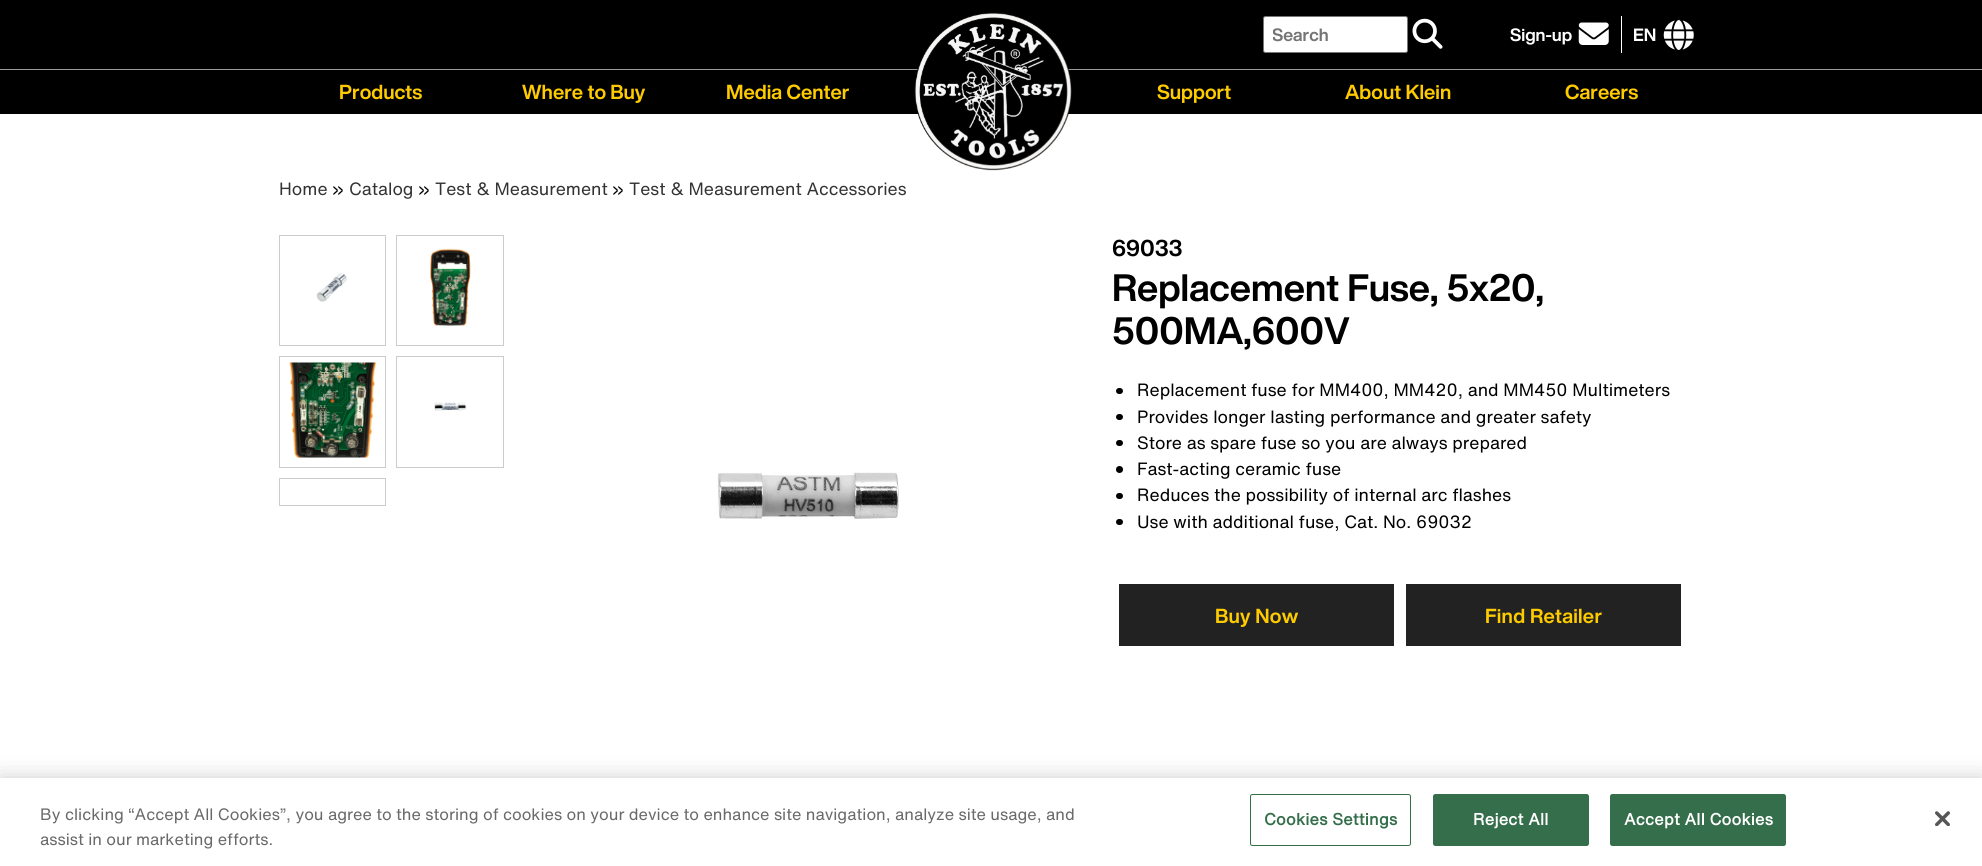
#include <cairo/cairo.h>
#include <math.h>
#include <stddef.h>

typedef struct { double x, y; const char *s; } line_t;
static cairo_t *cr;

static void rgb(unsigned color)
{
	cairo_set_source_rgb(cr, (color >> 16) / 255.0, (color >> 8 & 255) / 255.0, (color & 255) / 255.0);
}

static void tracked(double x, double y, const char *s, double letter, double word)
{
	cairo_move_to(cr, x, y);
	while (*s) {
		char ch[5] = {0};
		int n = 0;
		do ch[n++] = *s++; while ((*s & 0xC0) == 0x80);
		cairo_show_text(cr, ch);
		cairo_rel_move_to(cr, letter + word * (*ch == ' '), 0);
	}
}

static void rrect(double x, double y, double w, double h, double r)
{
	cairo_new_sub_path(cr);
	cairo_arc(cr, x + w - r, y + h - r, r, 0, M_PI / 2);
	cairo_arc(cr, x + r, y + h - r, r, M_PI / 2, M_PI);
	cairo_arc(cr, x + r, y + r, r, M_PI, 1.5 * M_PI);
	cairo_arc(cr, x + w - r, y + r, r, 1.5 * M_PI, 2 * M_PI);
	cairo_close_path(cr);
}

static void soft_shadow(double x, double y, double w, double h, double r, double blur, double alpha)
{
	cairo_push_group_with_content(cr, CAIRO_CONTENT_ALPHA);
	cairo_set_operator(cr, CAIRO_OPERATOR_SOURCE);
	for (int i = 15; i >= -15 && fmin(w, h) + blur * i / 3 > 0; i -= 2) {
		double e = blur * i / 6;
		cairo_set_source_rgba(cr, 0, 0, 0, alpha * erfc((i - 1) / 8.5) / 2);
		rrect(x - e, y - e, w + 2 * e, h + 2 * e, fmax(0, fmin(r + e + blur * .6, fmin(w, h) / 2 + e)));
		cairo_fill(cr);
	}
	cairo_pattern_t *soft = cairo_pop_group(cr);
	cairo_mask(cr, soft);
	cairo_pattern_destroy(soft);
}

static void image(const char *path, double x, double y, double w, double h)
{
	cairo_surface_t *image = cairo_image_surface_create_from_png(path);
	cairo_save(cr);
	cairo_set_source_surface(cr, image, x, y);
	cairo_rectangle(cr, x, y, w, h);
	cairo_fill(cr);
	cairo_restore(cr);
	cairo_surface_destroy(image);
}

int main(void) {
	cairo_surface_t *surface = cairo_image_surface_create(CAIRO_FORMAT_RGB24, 1982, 866);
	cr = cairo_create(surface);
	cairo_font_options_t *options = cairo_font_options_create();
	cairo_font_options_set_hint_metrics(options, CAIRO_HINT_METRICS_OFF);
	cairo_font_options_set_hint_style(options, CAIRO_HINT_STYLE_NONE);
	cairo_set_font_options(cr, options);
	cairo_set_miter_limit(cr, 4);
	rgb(0xffffff);
	cairo_paint(cr);
	rgb(0x000000);
	cairo_rectangle(cr, 0, 0, 1982, 114);
	cairo_fill(cr);
	rgb(0xffffff);
	rrect(1263.5, 16.5, 144, 36, 2);
	cairo_fill_preserve(cr);
	rgb(0x767676);
	cairo_set_line_width(cr, 1);
	cairo_stroke(cr);
	image("img/1.png", 1412, 18, 31, 31);
	rgb(0xffffff);
	cairo_rectangle(cr, 1621, 16, 1, 37);
	cairo_fill(cr);
	image("img/2.png", 1578, 22, 31, 23);
	image("img/3.png", 1663, 20, 31, 30);
	rgb(0x999999);
	cairo_rectangle(cr, 0, 69, 1982, 1);
	cairo_fill(cr);
	image("img/4.png", 914, 12, 158, 159);
	cairo_rectangle(cr, 279.5, 235.5, 106, 110);
	rgb(0xcccccc);
	cairo_stroke(cr);
	image("img/5.png", 316, 273, 31, 29);
	cairo_rectangle(cr, 396.5, 235.5, 107, 110);
	cairo_stroke(cr);
	image("img/6.png", 430, 248, 41, 78);
	cairo_rectangle(cr, 279.5, 356.5, 106, 111);
	cairo_stroke(cr);
	image("img/7.png", 289, 362, 88, 96);
	cairo_rectangle(cr, 396.5, 356.5, 107, 111);
	cairo_stroke(cr);
	image("img/8.png", 434, 402, 33, 9);
	cairo_rectangle(cr, 279.5, 478.5, 106, 27);
	cairo_stroke(cr);
	image("img/9.png", 717, 472, 182, 47);
	rgb(0x000000);
	rrect(1116, 388, 7, 6, 3);
	cairo_fill(cr);
	rrect(1116, 414, 7, 6, 3);
	cairo_fill(cr);
	rrect(1116, 440, 7, 6, 3);
	cairo_fill(cr);
	cairo_arc(cr, 1119.5, 469.5, 3.5, 0, 2 * M_PI);
	cairo_fill(cr);
	rrect(1116, 493, 7, 6, 3);
	cairo_fill(cr);
	rrect(1116, 519, 7, 6, 3);
	cairo_fill(cr);
	rgb(0x222222);
	cairo_rectangle(cr, 1119, 584, 275, 62);
	cairo_fill(cr);
	cairo_rectangle(cr, 1406, 584, 275, 62);
	cairo_fill(cr);
	rgb(0x000000);
	soft_shadow(0, 778, 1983, 88, 0, 11, 0.2);
	rgb(0xffffff);
	cairo_rectangle(cr, 0, 778, 1982, 88);
	cairo_fill(cr);
	rrect(1250.5, 794.5, 160, 51, 2);
	rgb(0x346e4a);
	cairo_stroke(cr);
	rrect(1433.5, 794.5, 155, 51, 2);
	cairo_fill_preserve(cr);
	cairo_stroke(cr);
	rrect(1610.5, 794.5, 175, 51, 2);
	cairo_fill_preserve(cr);
	cairo_stroke(cr);
	image("img/10.png", 1935, 811, 15, 15);
	cairo_save(cr);
	cairo_rectangle(cr, 1273, 21, 125, 27);
	cairo_clip(cr);
	cairo_select_font_face(cr, "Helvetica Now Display", CAIRO_FONT_SLANT_NORMAL, CAIRO_FONT_WEIGHT_BOLD);
	cairo_set_font_size(cr, 17.5);
	rgb(0x757575);
	cairo_move_to(cr, 1272, 41);
	cairo_show_text(cr, "Search");
	cairo_restore(cr);
	cairo_select_font_face(cr, "Helvetica Now Display", CAIRO_FONT_SLANT_NORMAL, CAIRO_FONT_WEIGHT_BOLD);
	cairo_set_font_size(cr, 17.5);
	rgb(0xffffff);
	cairo_move_to(cr, 1510, 41);
	cairo_show_text(cr, "Sign-up");
	cairo_move_to(cr, 1633, 41);
	cairo_show_text(cr, "EN");
	cairo_set_font_size(cr, 20);
	rgb(0xfecb00);
	{
		static const line_t items[] = {
			{339, 99, "Products"},
			{522, 99, "Where to Buy"},
			{726, 99, "Media Center"},
			{1157, 99, "Support"},
			{1345, 99, "About Klein"},
			{1565, 99, "Careers"},
		};
		for (size_t i = 0; i < sizeof items / sizeof *items; i++) {
			cairo_move_to(cr, items[i].x, items[i].y);
			cairo_show_text(cr, items[i].s);
		}
	}
	cairo_select_font_face(cr, "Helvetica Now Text", CAIRO_FONT_SLANT_NORMAL, CAIRO_FONT_WEIGHT_NORMAL);
	cairo_set_font_size(cr, 17.5);
	rgb(0x333333);
	cairo_move_to(cr, 279, 195);
	cairo_show_text(cr, "Home");
	rgb(0x000000);
	cairo_move_to(cr, 332, 195);
	cairo_show_text(cr, "»");
	rgb(0x333333);
	cairo_move_to(cr, 349, 195);
	cairo_show_text(cr, "Catalog");
	rgb(0x000000);
	cairo_move_to(cr, 418, 195);
	cairo_show_text(cr, "»");
	rgb(0x333333);
	cairo_move_to(cr, 435, 195);
	cairo_show_text(cr, "Test & Measurement");
	rgb(0x000000);
	cairo_move_to(cr, 612, 195);
	cairo_show_text(cr, "»");
	rgb(0x333333);
	cairo_move_to(cr, 629, 195);
	cairo_show_text(cr, "Test & Measurement Accessories");
	cairo_select_font_face(cr, "Helvetica Now Display", CAIRO_FONT_SLANT_NORMAL, CAIRO_FONT_WEIGHT_BOLD);
	cairo_set_font_size(cr, 22.5);
	rgb(0x000000);
	cairo_move_to(cr, 1112, 256);
	cairo_show_text(cr, "69033");
	cairo_set_font_size(cr, 37.5);
	cairo_move_to(cr, 1112, 301);
	cairo_show_text(cr, "Replacement Fuse, 5x20,");
	cairo_move_to(cr, 1112, 344);
	cairo_show_text(cr, "500MA,600V");
	cairo_select_font_face(cr, "Helvetica Now Text", CAIRO_FONT_SLANT_NORMAL, CAIRO_FONT_WEIGHT_NORMAL);
	cairo_set_font_size(cr, 17.5);
	{
		static const line_t items[] = {
			{1137, 396, "Replacement fuse for MM400, MM420, and MM450 Multimeters"},
			{1137, 423, "Provides longer lasting performance and greater safety"},
			{1137, 449, "Store as spare fuse so you are always prepared"},
			{1137, 475, "Fast-acting ceramic fuse"},
			{1137, 501, "Reduces the possibility of internal arc flashes"},
			{1137, 528, "Use with additional fuse, Cat. No. 69032"},
		};
		for (size_t i = 0; i < sizeof items / sizeof *items; i++) {
			cairo_move_to(cr, items[i].x, items[i].y);
			cairo_show_text(cr, items[i].s);
		}
	}
	cairo_select_font_face(cr, "Helvetica Now Display", CAIRO_FONT_SLANT_NORMAL, CAIRO_FONT_WEIGHT_BOLD);
	cairo_set_font_size(cr, 20);
	rgb(0xfecb00);
	tracked(1215, 623, "Buy Now", 0.25, 0);
	tracked(1485, 623, "Find Retailer", 0.25, 0);
	cairo_select_font_face(cr, "Helvetica Now Text", CAIRO_FONT_SLANT_NORMAL, CAIRO_FONT_WEIGHT_NORMAL);
	cairo_set_font_size(cr, 16.25);
	rgb(0x696969);
	cairo_move_to(cr, 40, 820);
	cairo_show_text(cr, "By clicking “Accept All Cookies”, you agree to the storing of cookies on your device to enhance site navigation, analyze site usage, and");
	cairo_move_to(cr, 40, 845);
	cairo_show_text(cr, "assist in our marketing efforts.");
	cairo_select_font_face(cr, "Helvetica Now Text", CAIRO_FONT_SLANT_NORMAL, CAIRO_FONT_WEIGHT_BOLD);
	rgb(0x346e4a);
	tracked(1264, 825, "Cookies Settings", 0.2, 0);
	rgb(0xffffff);
	tracked(1473, 825, "Reject All", 0.2, 0);
	tracked(1624, 825, "Accept All Cookies", 0.2, 0);
	cairo_surface_write_to_png(surface, "page.png");
	cairo_font_options_destroy(options);
	cairo_destroy(cr);
	cairo_surface_destroy(surface);
	return 0;
}
